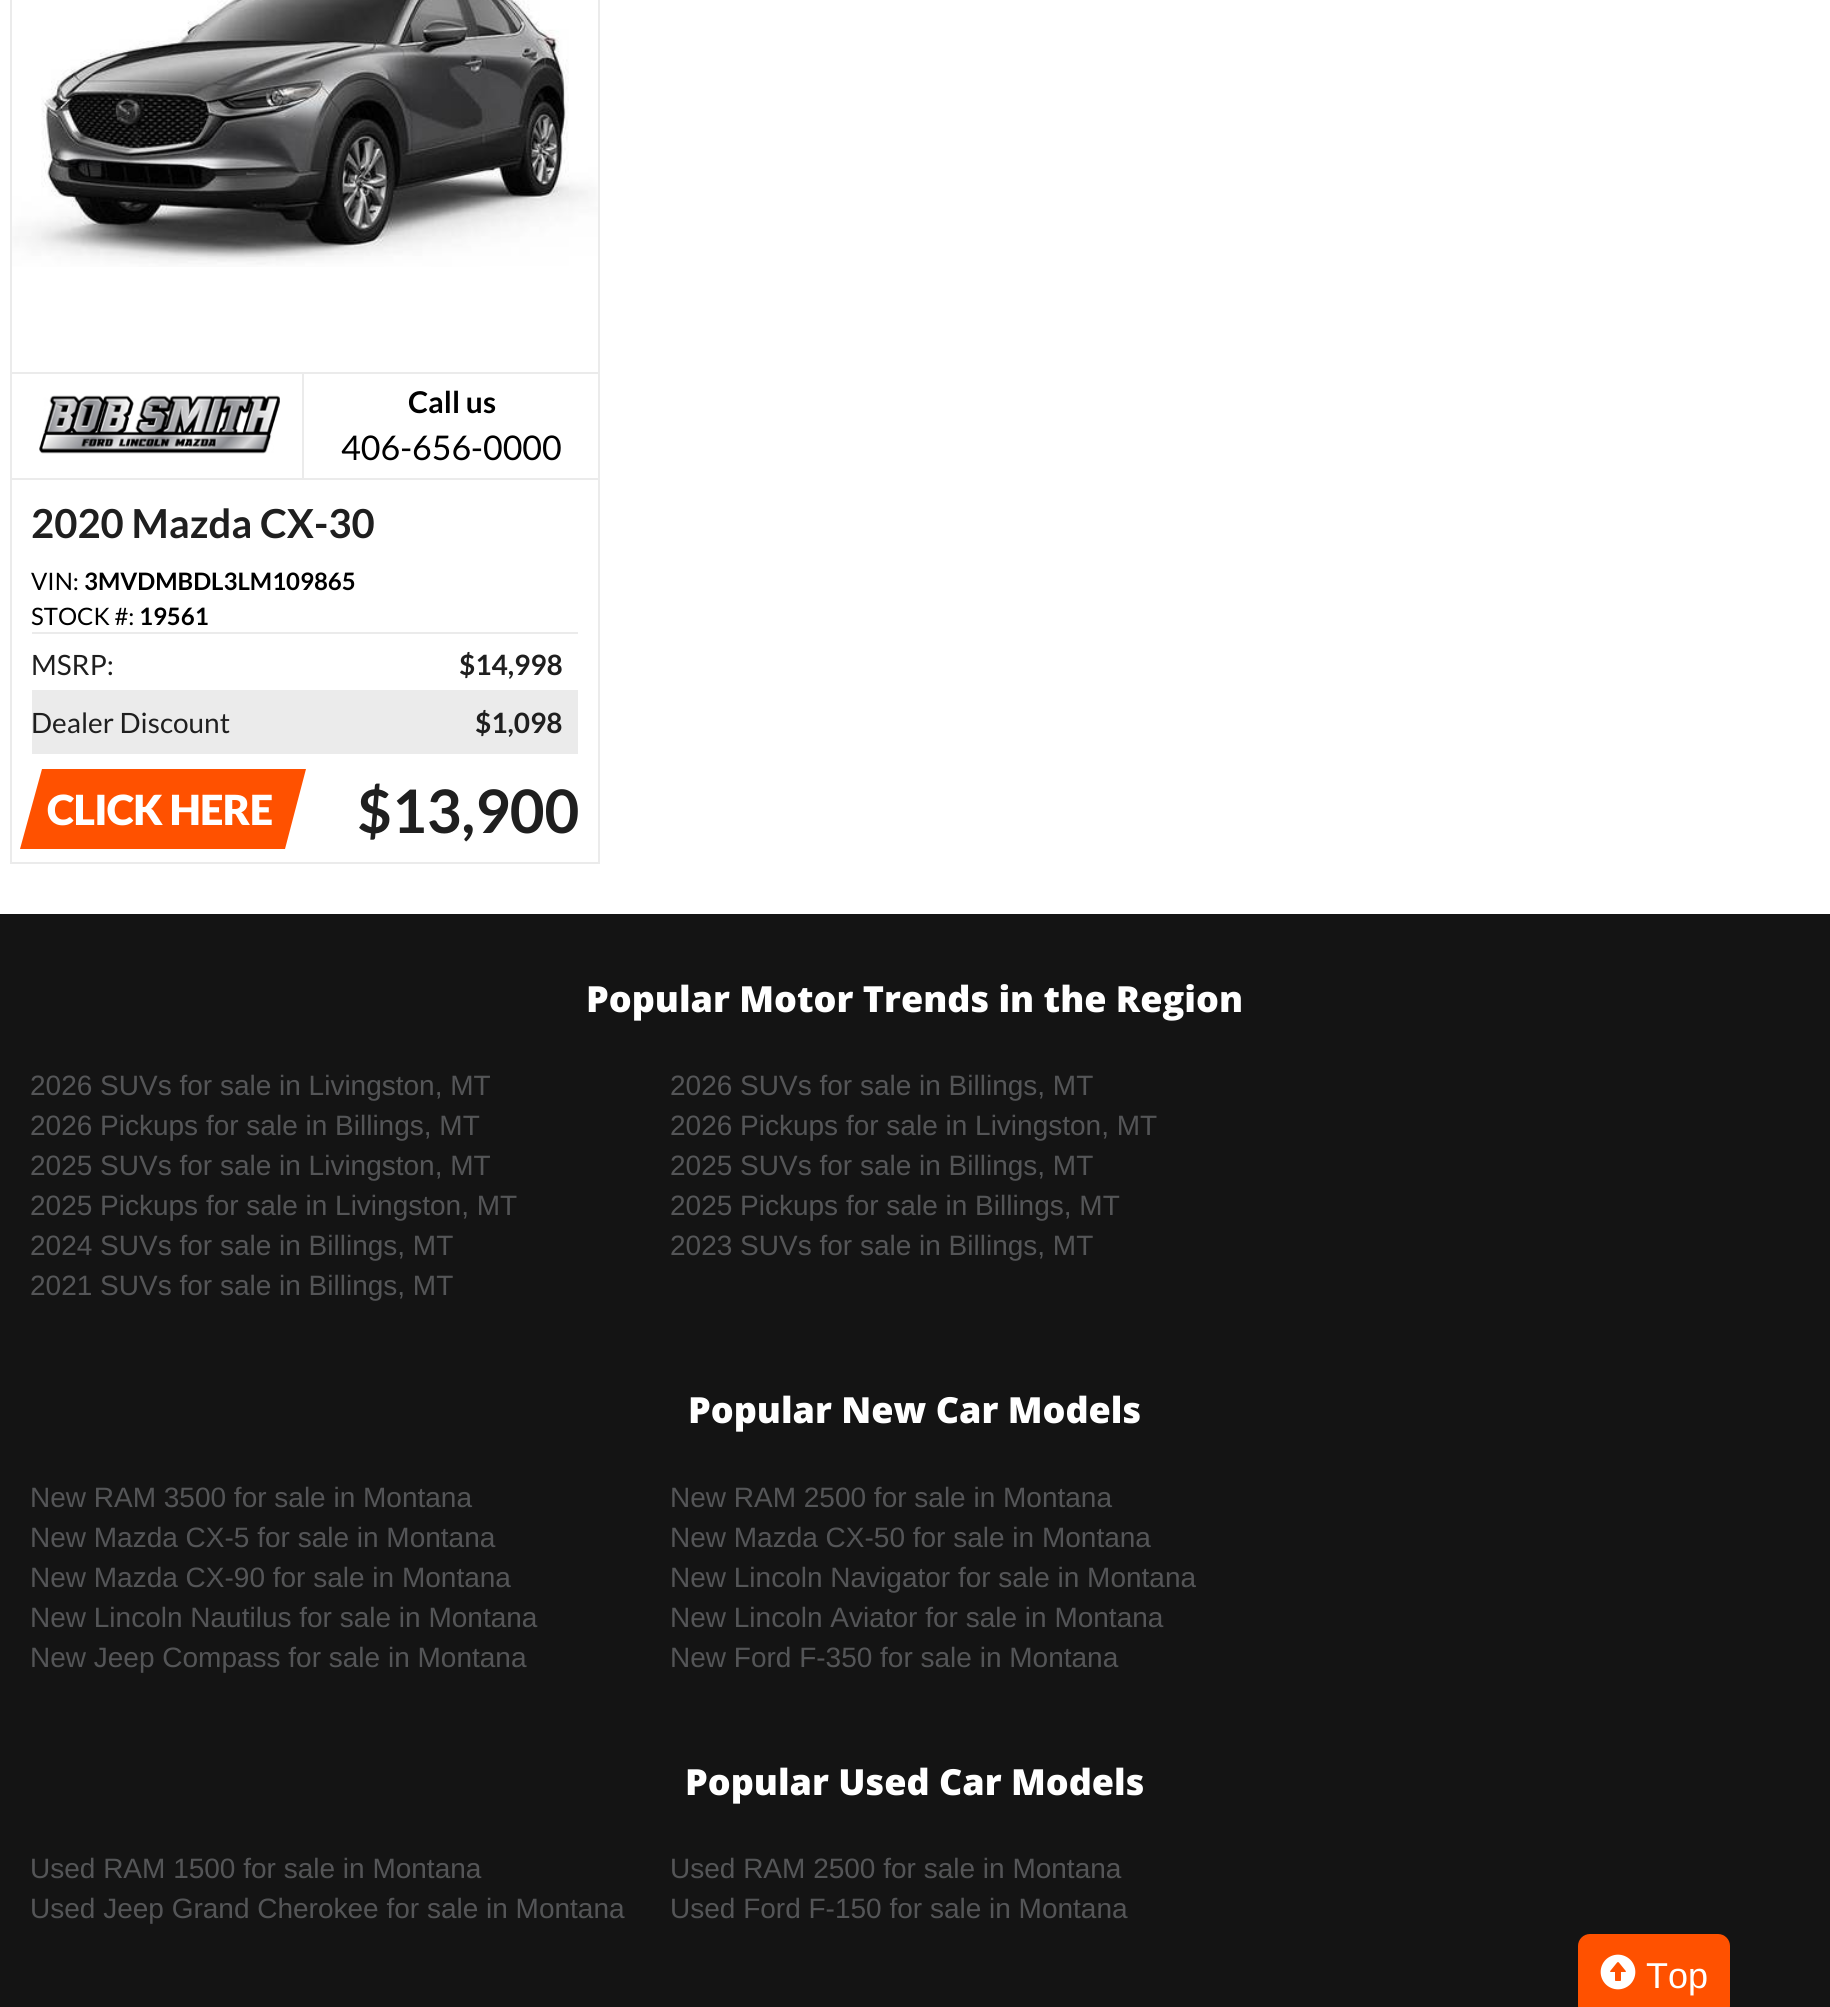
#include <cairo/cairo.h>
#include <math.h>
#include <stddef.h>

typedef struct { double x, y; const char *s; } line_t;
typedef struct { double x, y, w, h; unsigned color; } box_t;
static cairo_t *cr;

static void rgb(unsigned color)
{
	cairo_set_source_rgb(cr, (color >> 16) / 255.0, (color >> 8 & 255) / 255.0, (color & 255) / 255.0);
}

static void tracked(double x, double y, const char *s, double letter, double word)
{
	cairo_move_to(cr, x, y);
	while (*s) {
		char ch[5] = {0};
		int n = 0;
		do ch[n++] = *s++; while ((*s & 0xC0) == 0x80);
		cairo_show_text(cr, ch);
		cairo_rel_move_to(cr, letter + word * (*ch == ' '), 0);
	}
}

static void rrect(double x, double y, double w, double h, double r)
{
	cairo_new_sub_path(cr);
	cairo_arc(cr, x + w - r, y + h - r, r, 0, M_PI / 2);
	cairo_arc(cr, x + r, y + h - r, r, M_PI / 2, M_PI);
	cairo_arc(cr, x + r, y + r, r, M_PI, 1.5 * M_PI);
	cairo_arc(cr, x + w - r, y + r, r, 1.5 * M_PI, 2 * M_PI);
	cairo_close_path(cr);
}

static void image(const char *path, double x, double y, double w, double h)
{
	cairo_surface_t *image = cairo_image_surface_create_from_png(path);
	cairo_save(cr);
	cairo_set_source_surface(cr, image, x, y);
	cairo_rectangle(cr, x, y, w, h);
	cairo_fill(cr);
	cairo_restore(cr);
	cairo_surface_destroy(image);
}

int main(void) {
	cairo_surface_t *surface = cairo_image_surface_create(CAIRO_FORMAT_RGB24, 1830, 2007);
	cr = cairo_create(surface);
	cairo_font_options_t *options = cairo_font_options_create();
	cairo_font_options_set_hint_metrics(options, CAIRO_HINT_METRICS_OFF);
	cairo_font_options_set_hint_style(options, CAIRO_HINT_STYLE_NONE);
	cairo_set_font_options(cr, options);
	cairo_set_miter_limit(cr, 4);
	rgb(0xffffff);
	cairo_paint(cr);
	cairo_rectangle(cr, 11, -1, 588, 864);
	rgb(0xebebeb);
	cairo_stroke(cr);
	image("img/1.png", 12, 0, 586, 267);
	{
		static const box_t items[] = {
			{12, 372, 586, 2, 0xebebeb},
			{302, 372, 2, 108, 0xebebeb},
			{12, 478, 586, 2, 0xebebeb},
		};
		for (size_t i = 0; i < sizeof items / sizeof *items; i++) {
			rgb(items[i].color);
			cairo_rectangle(cr, items[i].x, items[i].y, items[i].w, items[i].h);
			cairo_fill(cr);
		}
	}
	image("img/2.png", 39, 395, 241, 59);
	cairo_rectangle(cr, 32, 632, 546, 2);
	cairo_fill(cr);
	cairo_rectangle(cr, 32, 690, 546, 64);
	cairo_fill(cr);
	rgb(0xff5100);
	cairo_new_path(cr);
	cairo_move_to(cr, 42, 769);
	cairo_line_to(cr, 306, 769);
	cairo_line_to(cr, 285, 849);
	cairo_line_to(cr, 20, 849);
	cairo_close_path(cr);
	cairo_fill(cr);
	rgb(0x141414);
	cairo_rectangle(cr, 0, 914, 1830, 1093);
	cairo_fill(cr);
	rgb(0xff5100);
	rrect(1579, 1935, 150, 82, 11);
	cairo_fill_preserve(cr);
	cairo_stroke(cr);
	image("img/3.png", 1600, 1954, 36, 36);
	cairo_select_font_face(cr, "Lato", CAIRO_FONT_SLANT_NORMAL, CAIRO_FONT_WEIGHT_BOLD);
	cairo_set_font_size(cr, 30);
	rgb(0x000000);
	cairo_move_to(cr, 408, 413);
	cairo_show_text(cr, "Call us");
	cairo_select_font_face(cr, "Lato", CAIRO_FONT_SLANT_NORMAL, CAIRO_FONT_WEIGHT_NORMAL);
	cairo_set_font_size(cr, 34);
	cairo_move_to(cr, 341, 460);
	cairo_show_text(cr, "406-656-0000");
	cairo_select_font_face(cr, "Lato", CAIRO_FONT_SLANT_NORMAL, CAIRO_FONT_WEIGHT_BOLD);
	cairo_set_font_size(cr, 40);
	rgb(0x1f1f1f);
	cairo_move_to(cr, 31, 538);
	cairo_show_text(cr, "2020 Mazda CX-30");
	cairo_select_font_face(cr, "Lato", CAIRO_FONT_SLANT_NORMAL, CAIRO_FONT_WEIGHT_NORMAL);
	cairo_set_font_size(cr, 24);
	rgb(0x000000);
	cairo_move_to(cr, 31, 590);
	cairo_show_text(cr, "VIN:");
	cairo_select_font_face(cr, "Lato", CAIRO_FONT_SLANT_NORMAL, CAIRO_FONT_WEIGHT_BOLD);
	cairo_move_to(cr, 84, 590);
	cairo_show_text(cr, "3MVDMBDL3LM109865");
	cairo_select_font_face(cr, "Lato", CAIRO_FONT_SLANT_NORMAL, CAIRO_FONT_WEIGHT_NORMAL);
	cairo_move_to(cr, 31, 625);
	cairo_show_text(cr, "STOCK #:");
	cairo_select_font_face(cr, "Lato", CAIRO_FONT_SLANT_NORMAL, CAIRO_FONT_WEIGHT_BOLD);
	cairo_move_to(cr, 139, 625);
	cairo_show_text(cr, "19561");
	cairo_select_font_face(cr, "Lato", CAIRO_FONT_SLANT_NORMAL, CAIRO_FONT_WEIGHT_NORMAL);
	cairo_set_font_size(cr, 28);
	rgb(0x1f1f1f);
	cairo_move_to(cr, 31, 675);
	cairo_show_text(cr, "MSRP:");
	cairo_select_font_face(cr, "Lato", CAIRO_FONT_SLANT_NORMAL, CAIRO_FONT_WEIGHT_BOLD);
	cairo_move_to(cr, 459, 675);
	cairo_show_text(cr, "$14,998");
	cairo_select_font_face(cr, "Lato", CAIRO_FONT_SLANT_NORMAL, CAIRO_FONT_WEIGHT_NORMAL);
	cairo_move_to(cr, 31, 733);
	cairo_show_text(cr, "Dealer Discount");
	cairo_select_font_face(cr, "Lato", CAIRO_FONT_SLANT_NORMAL, CAIRO_FONT_WEIGHT_BOLD);
	cairo_move_to(cr, 475, 733);
	cairo_show_text(cr, "$1,098");
	cairo_select_font_face(cr, "Lato Black", CAIRO_FONT_SLANT_NORMAL, CAIRO_FONT_WEIGHT_NORMAL);
	cairo_set_font_size(cr, 41.5);
	rgb(0xffffff);
	tracked(47, 825, "CLICK HERE", -0.75, 0);
	cairo_select_font_face(cr, "Lato", CAIRO_FONT_SLANT_NORMAL, CAIRO_FONT_WEIGHT_BOLD);
	cairo_set_font_size(cr, 60);
	rgb(0x1f1f1f);
	cairo_move_to(cr, 357, 833);
	cairo_show_text(cr, "$13,900");
	cairo_select_font_face(cr, "Liberation Sans", CAIRO_FONT_SLANT_NORMAL, CAIRO_FONT_WEIGHT_NORMAL);
	cairo_set_font_size(cr, 36);
	rgb(0xffffff);
	cairo_move_to(cr, 1646, 1988);
	cairo_show_text(cr, "Top");
	cairo_select_font_face(cr, "Open Sans ExtraBold", CAIRO_FONT_SLANT_NORMAL, CAIRO_FONT_WEIGHT_NORMAL);
	cairo_move_to(cr, 586, 1012);
	cairo_show_text(cr, "Popular Motor Trends in the Region");
	cairo_select_font_face(cr, "Liberation Sans", CAIRO_FONT_SLANT_NORMAL, CAIRO_FONT_WEIGHT_NORMAL);
	cairo_set_font_size(cr, 28);
	rgb(0x545557);
	{
		static const line_t items[] = {
			{30, 1095, "2026 SUVs for sale in Livingston, MT"},
			{670, 1095, "2026 SUVs for sale in Billings, MT"},
			{30, 1135, "2026 Pickups for sale in Billings, MT"},
			{670, 1135, "2026 Pickups for sale in Livingston, MT"},
			{30, 1175, "2025 SUVs for sale in Livingston, MT"},
			{670, 1175, "2025 SUVs for sale in Billings, MT"},
			{30, 1215, "2025 Pickups for sale in Livingston, MT"},
			{670, 1215, "2025 Pickups for sale in Billings, MT"},
			{30, 1255, "2024 SUVs for sale in Billings, MT"},
			{670, 1255, "2023 SUVs for sale in Billings, MT"},
			{30, 1295, "2021 SUVs for sale in Billings, MT"},
		};
		for (size_t i = 0; i < sizeof items / sizeof *items; i++) {
			cairo_move_to(cr, items[i].x, items[i].y);
			cairo_show_text(cr, items[i].s);
		}
	}
	cairo_select_font_face(cr, "Open Sans ExtraBold", CAIRO_FONT_SLANT_NORMAL, CAIRO_FONT_WEIGHT_NORMAL);
	cairo_set_font_size(cr, 36);
	rgb(0xffffff);
	cairo_move_to(cr, 688, 1423);
	cairo_show_text(cr, "Popular New Car Models");
	cairo_select_font_face(cr, "Liberation Sans", CAIRO_FONT_SLANT_NORMAL, CAIRO_FONT_WEIGHT_NORMAL);
	cairo_set_font_size(cr, 28);
	rgb(0x545557);
	{
		static const line_t items[] = {
			{30, 1507, "New RAM 3500 for sale in Montana"},
			{670, 1507, "New RAM 2500 for sale in Montana"},
			{30, 1547, "New Mazda CX-5 for sale in Montana"},
			{670, 1547, "New Mazda CX-50 for sale in Montana"},
			{30, 1587, "New Mazda CX-90 for sale in Montana"},
			{670, 1587, "New Lincoln Navigator for sale in Montana"},
			{30, 1627, "New Lincoln Nautilus for sale in Montana"},
			{670, 1627, "New Lincoln Aviator for sale in Montana"},
			{30, 1667, "New Jeep Compass for sale in Montana"},
			{670, 1667, "New Ford F-350 for sale in Montana"},
		};
		for (size_t i = 0; i < sizeof items / sizeof *items; i++) {
			cairo_move_to(cr, items[i].x, items[i].y);
			cairo_show_text(cr, items[i].s);
		}
	}
	cairo_select_font_face(cr, "Open Sans ExtraBold", CAIRO_FONT_SLANT_NORMAL, CAIRO_FONT_WEIGHT_NORMAL);
	cairo_set_font_size(cr, 36);
	rgb(0xffffff);
	cairo_move_to(cr, 685, 1795);
	cairo_show_text(cr, "Popular Used Car Models");
	cairo_select_font_face(cr, "Liberation Sans", CAIRO_FONT_SLANT_NORMAL, CAIRO_FONT_WEIGHT_NORMAL);
	cairo_set_font_size(cr, 28);
	rgb(0x545557);
	{
		static const line_t items[] = {
			{30, 1878, "Used RAM 1500 for sale in Montana"},
			{670, 1878, "Used RAM 2500 for sale in Montana"},
			{30, 1918, "Used Jeep Grand Cherokee for sale in Montana"},
			{670, 1918, "Used Ford F-150 for sale in Montana"},
		};
		for (size_t i = 0; i < sizeof items / sizeof *items; i++) {
			cairo_move_to(cr, items[i].x, items[i].y);
			cairo_show_text(cr, items[i].s);
		}
	}
	cairo_surface_write_to_png(surface, "page.png");
	cairo_font_options_destroy(options);
	cairo_destroy(cr);
	cairo_surface_destroy(surface);
	return 0;
}
